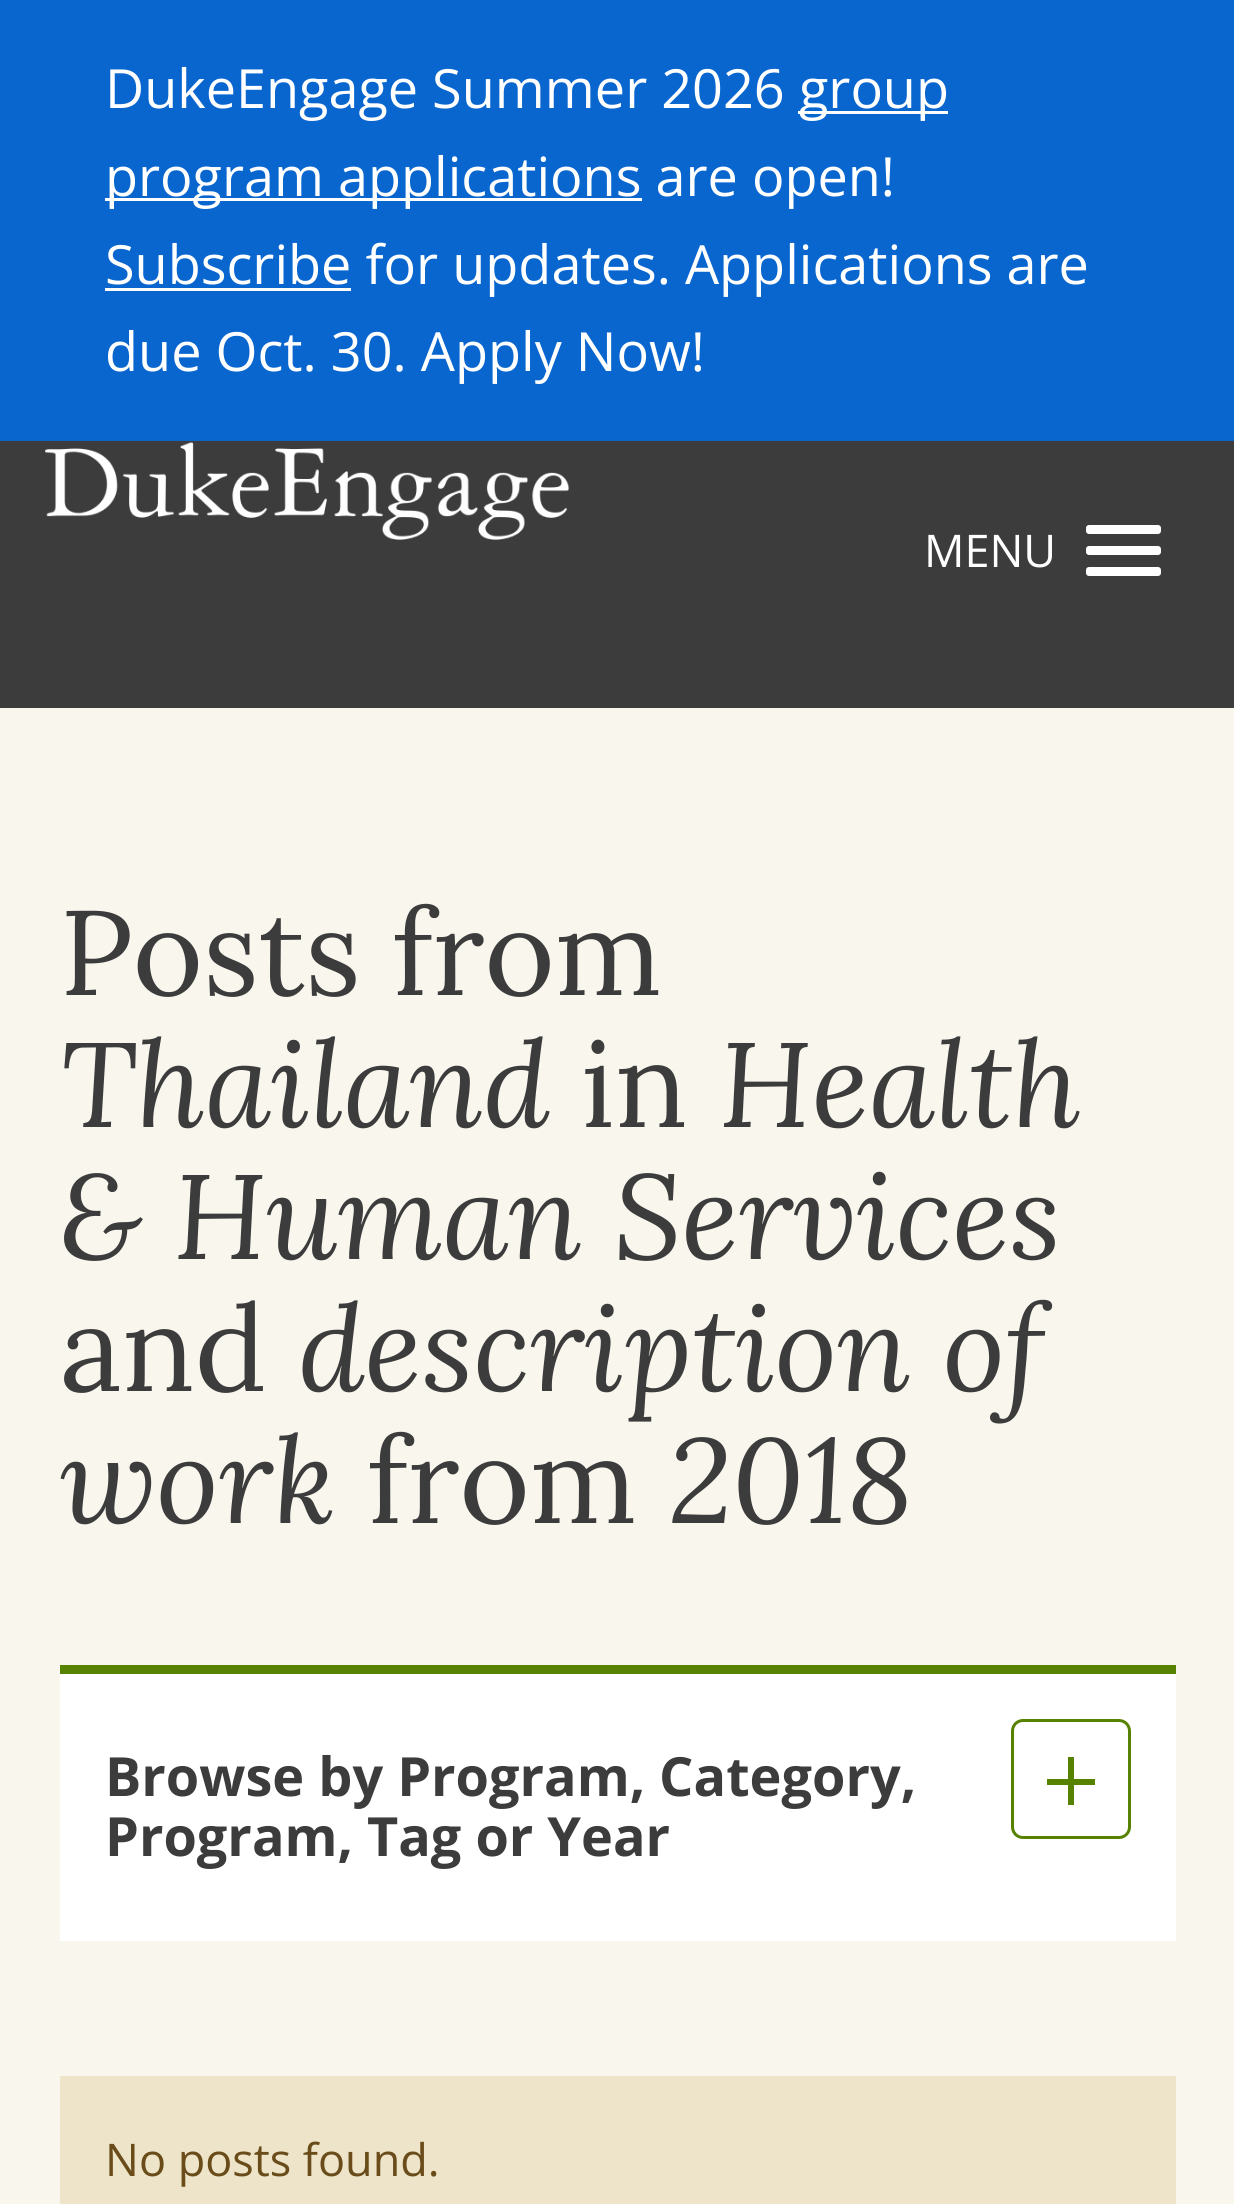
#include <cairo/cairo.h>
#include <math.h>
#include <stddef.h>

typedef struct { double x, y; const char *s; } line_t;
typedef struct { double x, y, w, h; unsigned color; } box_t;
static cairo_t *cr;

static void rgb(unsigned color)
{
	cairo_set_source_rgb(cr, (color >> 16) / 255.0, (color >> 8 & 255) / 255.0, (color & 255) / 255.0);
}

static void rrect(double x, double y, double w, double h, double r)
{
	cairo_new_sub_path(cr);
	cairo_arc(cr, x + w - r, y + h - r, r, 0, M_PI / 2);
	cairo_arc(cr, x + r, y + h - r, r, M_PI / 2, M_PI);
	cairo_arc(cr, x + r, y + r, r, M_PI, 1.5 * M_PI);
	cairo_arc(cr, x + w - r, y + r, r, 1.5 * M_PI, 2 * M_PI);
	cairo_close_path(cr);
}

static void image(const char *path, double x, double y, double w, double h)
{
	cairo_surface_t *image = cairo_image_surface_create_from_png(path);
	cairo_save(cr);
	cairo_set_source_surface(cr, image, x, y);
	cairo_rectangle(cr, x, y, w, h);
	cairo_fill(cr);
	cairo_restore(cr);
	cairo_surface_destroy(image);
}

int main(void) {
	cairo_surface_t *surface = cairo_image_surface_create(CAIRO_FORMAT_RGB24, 1234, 2204);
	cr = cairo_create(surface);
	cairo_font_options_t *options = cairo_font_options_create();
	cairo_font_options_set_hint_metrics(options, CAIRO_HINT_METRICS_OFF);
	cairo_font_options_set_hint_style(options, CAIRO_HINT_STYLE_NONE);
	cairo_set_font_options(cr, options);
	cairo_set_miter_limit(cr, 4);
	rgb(0xf9f6ee);
	cairo_paint(cr);
	{
		static const box_t items[] = {
			{0, 0, 1234, 441, 0x0966cf},
			{798, 111, 150, 3, 0xffffff},
			{105, 198, 537, 3, 0xffffff},
			{105, 288, 246, 3, 0xffffff},
			{0, 441, 1234, 267, 0x3c3c3c},
		};
		for (size_t i = 0; i < sizeof items / sizeof *items; i++) {
			rgb(items[i].color);
			cairo_rectangle(cr, items[i].x, items[i].y, items[i].w, items[i].h);
			cairo_fill(cr);
		}
	}
	image("img/1.png", 45, 442, 525, 98);
	rgb(0xffffff);
	rrect(1086, 525, 75, 9, 3);
	cairo_fill(cr);
	rrect(1086, 546, 75, 9, 3);
	cairo_fill(cr);
	rrect(1086, 567, 75, 9, 3);
	cairo_fill(cr);
	rgb(0x578200);
	cairo_rectangle(cr, 60, 1665, 1116, 9);
	cairo_fill(cr);
	rgb(0xffffff);
	cairo_rectangle(cr, 60, 1674, 1116, 267);
	cairo_fill(cr);
	rrect(1012.5, 1720.5, 117, 117, 10.5);
	rgb(0x578200);
	cairo_set_line_width(cr, 3);
	cairo_stroke(cr);
	{
		static const box_t items[] = {
			{1047, 1779, 48, 6, 0x578200},
			{1068, 1757, 6, 48, 0x578200},
			{60, 2076, 1116, 128, 0xeee4c9},
		};
		for (size_t i = 0; i < sizeof items / sizeof *items; i++) {
			rgb(items[i].color);
			cairo_rectangle(cr, items[i].x, items[i].y, items[i].w, items[i].h);
			cairo_fill(cr);
		}
	}
	cairo_select_font_face(cr, "Open Sans", CAIRO_FONT_SLANT_NORMAL, CAIRO_FONT_WEIGHT_NORMAL);
	cairo_set_font_size(cr, 54);
	rgb(0xffffff);
	{
		static const line_t items[] = {
			{105, 108, "DukeEngage Summer 2026"},
			{799, 108, "group"},
			{105, 196, "program applications are open!"},
			{105, 284, "Subscribe for updates. Applications are"},
			{105, 371, "due Oct. 30. Apply Now!"},
		};
		for (size_t i = 0; i < sizeof items / sizeof *items; i++) {
			cairo_move_to(cr, items[i].x, items[i].y);
			cairo_show_text(cr, items[i].s);
		}
	}
	cairo_set_font_size(cr, 45);
	cairo_move_to(cr, 924, 567);
	cairo_show_text(cr, "MENU");
	cairo_select_font_face(cr, "Lora", CAIRO_FONT_SLANT_NORMAL, CAIRO_FONT_WEIGHT_NORMAL);
	cairo_set_font_size(cr, 120);
	rgb(0x3c3c3c);
	cairo_move_to(cr, 60, 995);
	cairo_show_text(cr, "Posts from");
	cairo_select_font_face(cr, "Lora", CAIRO_FONT_SLANT_ITALIC, CAIRO_FONT_WEIGHT_NORMAL);
	cairo_move_to(cr, 60, 1127);
	cairo_show_text(cr, "Thailand");
	cairo_select_font_face(cr, "Lora", CAIRO_FONT_SLANT_NORMAL, CAIRO_FONT_WEIGHT_NORMAL);
	cairo_move_to(cr, 581, 1127);
	cairo_show_text(cr, "in");
	cairo_select_font_face(cr, "Lora", CAIRO_FONT_SLANT_ITALIC, CAIRO_FONT_WEIGHT_NORMAL);
	cairo_move_to(cr, 719, 1127);
	cairo_show_text(cr, "Health");
	cairo_move_to(cr, 60, 1259);
	cairo_show_text(cr, "& Human Services");
	cairo_select_font_face(cr, "Lora", CAIRO_FONT_SLANT_NORMAL, CAIRO_FONT_WEIGHT_NORMAL);
	cairo_move_to(cr, 60, 1391);
	cairo_show_text(cr, "and");
	cairo_select_font_face(cr, "Lora", CAIRO_FONT_SLANT_ITALIC, CAIRO_FONT_WEIGHT_NORMAL);
	cairo_move_to(cr, 298, 1391);
	cairo_show_text(cr, "description of");
	cairo_move_to(cr, 60, 1523);
	cairo_show_text(cr, "work");
	cairo_select_font_face(cr, "Lora", CAIRO_FONT_SLANT_NORMAL, CAIRO_FONT_WEIGHT_NORMAL);
	cairo_move_to(cr, 367, 1523);
	cairo_show_text(cr, "from");
	cairo_select_font_face(cr, "Lora", CAIRO_FONT_SLANT_ITALIC, CAIRO_FONT_WEIGHT_NORMAL);
	cairo_move_to(cr, 669, 1523);
	cairo_show_text(cr, "2018");
	cairo_select_font_face(cr, "Open Sans", CAIRO_FONT_SLANT_NORMAL, CAIRO_FONT_WEIGHT_BOLD);
	cairo_set_font_size(cr, 54);
	cairo_move_to(cr, 105, 1796);
	cairo_show_text(cr, "Browse by Program, Category,");
	cairo_move_to(cr, 105, 1856);
	cairo_show_text(cr, "Program, Tag or Year");
	cairo_select_font_face(cr, "Open Sans", CAIRO_FONT_SLANT_NORMAL, CAIRO_FONT_WEIGHT_NORMAL);
	cairo_set_font_size(cr, 45);
	rgb(0x694c1a);
	cairo_move_to(cr, 105, 2176);
	cairo_show_text(cr, "No posts found.");
	cairo_surface_write_to_png(surface, "page.png");
	cairo_font_options_destroy(options);
	cairo_destroy(cr);
	cairo_surface_destroy(surface);
	return 0;
}
